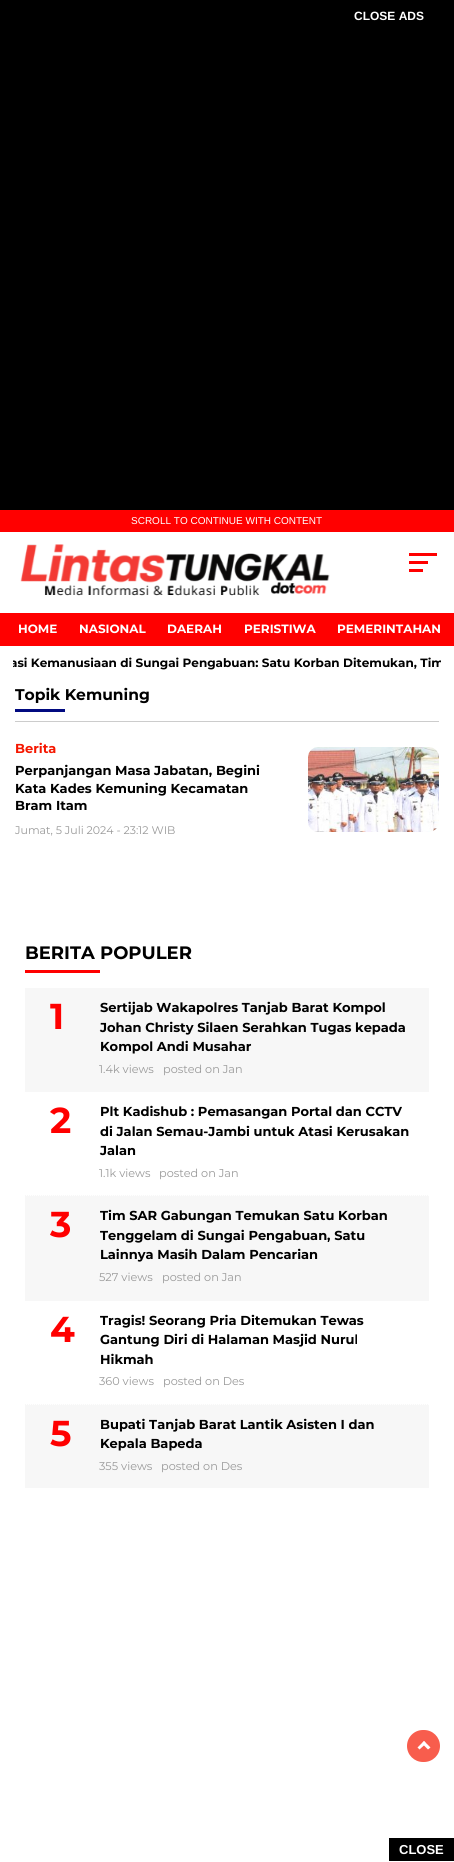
#include <cairo/cairo.h>
#include <math.h>
#include <stddef.h>

typedef struct { double x, y; const char *s; } line_t;
typedef struct { double x, y, w, h; unsigned color; } box_t;
static cairo_t *cr;

static void rgb(unsigned color)
{
	cairo_set_source_rgb(cr, (color >> 16) / 255.0, (color >> 8 & 255) / 255.0, (color & 255) / 255.0);
}

static void rrect(double x, double y, double w, double h, double r)
{
	cairo_new_sub_path(cr);
	cairo_arc(cr, x + w - r, y + h - r, r, 0, M_PI / 2);
	cairo_arc(cr, x + r, y + h - r, r, M_PI / 2, M_PI);
	cairo_arc(cr, x + r, y + r, r, M_PI, 1.5 * M_PI);
	cairo_arc(cr, x + w - r, y + r, r, 1.5 * M_PI, 2 * M_PI);
	cairo_close_path(cr);
}

static void image(const char *path, double x, double y, double w, double h)
{
	cairo_surface_t *image = cairo_image_surface_create_from_png(path);
	cairo_save(cr);
	cairo_set_source_surface(cr, image, x, y);
	cairo_rectangle(cr, x, y, w, h);
	cairo_fill(cr);
	cairo_restore(cr);
	cairo_surface_destroy(image);
}

int main(void) {
	cairo_surface_t *surface = cairo_image_surface_create(CAIRO_FORMAT_RGB24, 454, 1862);
	cr = cairo_create(surface);
	cairo_font_options_t *options = cairo_font_options_create();
	cairo_font_options_set_hint_metrics(options, CAIRO_HINT_METRICS_OFF);
	cairo_font_options_set_hint_style(options, CAIRO_HINT_STYLE_NONE);
	cairo_set_font_options(cr, options);
	cairo_set_miter_limit(cr, 4);
	rgb(0xffffff);
	cairo_paint(cr);
	rgb(0x000000);
	cairo_rectangle(cr, 0, 0, 454, 510);
	cairo_fill(cr);
	rgb(0xff0000);
	cairo_rectangle(cr, 0, 510, 454, 22);
	cairo_fill(cr);
	image("img/1.png", 20, 544, 310, 52);
	{
		static const box_t items[] = {
			{409, 553, 28, 3, 0xff0000},
			{409, 561, 19, 3, 0xff0000},
			{409, 569, 14, 3, 0xff0000},
			{0, 613, 454, 33, 0xff0000},
			{15, 721, 424, 1, 0xcccccc},
			{15, 709, 50, 3, 0x010a80},
		};
		for (size_t i = 0; i < sizeof items / sizeof *items; i++) {
			rgb(items[i].color);
			cairo_rectangle(cr, items[i].x, items[i].y, items[i].w, items[i].h);
			cairo_fill(cr);
		}
	}
	image("img/2.png", 308, 747, 131, 85);
	rgb(0xff0000);
	cairo_rectangle(cr, 25, 970, 75, 3);
	cairo_fill(cr);
	rgb(0xf7f7f7);
	cairo_rectangle(cr, 25, 988, 404, 104);
	cairo_fill(cr);
	cairo_new_path(cr);
	cairo_move_to(cr, 25, 1195.5);
	cairo_line_to(cr, 429, 1195.5);
	cairo_set_line_width(cr, 1);
	cairo_set_dash(cr, (double[]){1, 1}, 2, 0);
	cairo_stroke(cr);
	cairo_rectangle(cr, 25, 1196, 404, 105);
	cairo_fill(cr);
	cairo_new_path(cr);
	cairo_move_to(cr, 25, 1404.5);
	cairo_line_to(cr, 429, 1404.5);
	cairo_stroke(cr);
	cairo_rectangle(cr, 25, 1405, 404, 83);
	cairo_fill(cr);
	rgb(0xf85d4d);
	rrect(407, 1730, 33, 32, 16);
	cairo_fill(cr);
	rgb(0xffffff);
	cairo_new_path(cr);
	cairo_move_to(cr, 419.5, 1749.5);
	cairo_line_to(cr, 417.5, 1747.5);
	cairo_line_to(cr, 424, 1741);
	cairo_line_to(cr, 426, 1743.5);
	cairo_close_path(cr);
	cairo_fill(cr);
	cairo_new_path(cr);
	cairo_move_to(cr, 428, 1749.5);
	cairo_line_to(cr, 422, 1743.5);
	cairo_line_to(cr, 424, 1741);
	cairo_line_to(cr, 430.5, 1747.5);
	cairo_close_path(cr);
	cairo_fill(cr);
	rgb(0x000000);
	cairo_rectangle(cr, 389, 1838, 65, 23);
	cairo_fill(cr);
	cairo_select_font_face(cr, "Liberation Sans", CAIRO_FONT_SLANT_NORMAL, CAIRO_FONT_WEIGHT_BOLD);
	cairo_set_font_size(cr, 12);
	rgb(0xffffff);
	cairo_move_to(cr, 354, 20);
	cairo_show_text(cr, "CLOSE ADS");
	cairo_select_font_face(cr, "Liberation Sans", CAIRO_FONT_SLANT_NORMAL, CAIRO_FONT_WEIGHT_NORMAL);
	cairo_set_font_size(cr, 10);
	cairo_move_to(cr, 131, 524);
	cairo_show_text(cr, "SCROLL TO CONTINUE WITH CONTENT");
	cairo_select_font_face(cr, "Montserrat", CAIRO_FONT_SLANT_NORMAL, CAIRO_FONT_WEIGHT_BOLD);
	cairo_set_font_size(cr, 12);
	{
		static const line_t items[] = {
			{18, 633, "HOME"},
			{79, 633, "NASIONAL"},
			{167, 633, "DAERAH"},
			{244, 633, "PERISTIWA"},
			{337, 633, "PEMERINTAHAN"},
		};
		for (size_t i = 0; i < sizeof items / sizeof *items; i++) {
			cairo_move_to(cr, items[i].x, items[i].y);
			cairo_show_text(cr, items[i].s);
		}
	}
	cairo_save(cr);
	cairo_rectangle(cr, 13, 646, 428, 30);
	cairo_clip(cr);
	rgb(0x000000);
	cairo_move_to(cr, 10, 667);
	cairo_show_text(cr, "asi Kemanusiaan di Sungai Pengabuan: Satu Korban Ditemukan, Tim");
	cairo_restore(cr);
	cairo_set_font_size(cr, 15.5);
	rgb(0x000000);
	cairo_move_to(cr, 15, 700);
	cairo_show_text(cr, "Topik Kemuning");
	cairo_set_font_size(cr, 13);
	rgb(0xf51700);
	cairo_move_to(cr, 15, 753);
	cairo_show_text(cr, "Berita");
	rgb(0x000000);
	{
		static const line_t items[] = {
			{15, 775, "Perpanjangan Masa Jabatan, Begini"},
			{15, 793, "Kata Kades Kemuning Kecamatan"},
			{15, 810, "Bram Itam"},
		};
		for (size_t i = 0; i < sizeof items / sizeof *items; i++) {
			cairo_move_to(cr, items[i].x, items[i].y);
			cairo_show_text(cr, items[i].s);
		}
	}
	cairo_select_font_face(cr, "Montserrat", CAIRO_FONT_SLANT_NORMAL, CAIRO_FONT_WEIGHT_NORMAL);
	cairo_set_font_size(cr, 11);
	rgb(0x999999);
	cairo_move_to(cr, 15, 834);
	cairo_show_text(cr, "Jumat, 5 Juli 2024 - 23:12 WIB");
	cairo_select_font_face(cr, "Montserrat", CAIRO_FONT_SLANT_NORMAL, CAIRO_FONT_WEIGHT_BOLD);
	cairo_set_font_size(cr, 18);
	rgb(0x000000);
	cairo_move_to(cr, 25, 959);
	cairo_show_text(cr, "BERITA POPULER");
	cairo_set_font_size(cr, 36);
	rgb(0xff0000);
	cairo_move_to(cr, 50, 1029);
	cairo_show_text(cr, "1");
	cairo_set_font_size(cr, 13);
	rgb(0x000000);
	{
		static const line_t items[] = {
			{100, 1012, "Sertijab Wakapolres Tanjab Barat Kompol"},
			{100, 1032, "Johan Christy Silaen Serahkan Tugas kepada"},
			{100, 1051, "Kompol Andi Musahar"},
		};
		for (size_t i = 0; i < sizeof items / sizeof *items; i++) {
			cairo_move_to(cr, items[i].x, items[i].y);
			cairo_show_text(cr, items[i].s);
		}
	}
	cairo_select_font_face(cr, "Montserrat", CAIRO_FONT_SLANT_NORMAL, CAIRO_FONT_WEIGHT_NORMAL);
	cairo_set_font_size(cr, 11.25);
	rgb(0x999999);
	cairo_move_to(cr, 99, 1073);
	cairo_show_text(cr, "1.4k views");
	cairo_move_to(cr, 163, 1073);
	cairo_show_text(cr, "posted on Jan");
	cairo_select_font_face(cr, "Montserrat", CAIRO_FONT_SLANT_NORMAL, CAIRO_FONT_WEIGHT_BOLD);
	cairo_set_font_size(cr, 36);
	rgb(0xff0000);
	cairo_move_to(cr, 50, 1133);
	cairo_show_text(cr, "2");
	cairo_set_font_size(cr, 13);
	rgb(0x000000);
	{
		static const line_t items[] = {
			{100, 1116, "Plt Kadishub : Pemasangan Portal dan CCTV"},
			{100, 1136, "di Jalan Semau-Jambi untuk Atasi Kerusakan"},
			{100, 1155, "Jalan"},
		};
		for (size_t i = 0; i < sizeof items / sizeof *items; i++) {
			cairo_move_to(cr, items[i].x, items[i].y);
			cairo_show_text(cr, items[i].s);
		}
	}
	cairo_select_font_face(cr, "Montserrat", CAIRO_FONT_SLANT_NORMAL, CAIRO_FONT_WEIGHT_NORMAL);
	cairo_set_font_size(cr, 11.25);
	rgb(0x999999);
	cairo_move_to(cr, 99, 1177);
	cairo_show_text(cr, "1.1k views");
	cairo_move_to(cr, 159, 1177);
	cairo_show_text(cr, "posted on Jan");
	cairo_select_font_face(cr, "Montserrat", CAIRO_FONT_SLANT_NORMAL, CAIRO_FONT_WEIGHT_BOLD);
	cairo_set_font_size(cr, 36);
	rgb(0xff0000);
	cairo_move_to(cr, 50, 1237);
	cairo_show_text(cr, "3");
	cairo_set_font_size(cr, 13);
	rgb(0x000000);
	{
		static const line_t items[] = {
			{100, 1220, "Tim SAR Gabungan Temukan Satu Korban"},
			{100, 1240, "Tenggelam di Sungai Pengabuan, Satu"},
			{100, 1259, "Lainnya Masih Dalam Pencarian"},
		};
		for (size_t i = 0; i < sizeof items / sizeof *items; i++) {
			cairo_move_to(cr, items[i].x, items[i].y);
			cairo_show_text(cr, items[i].s);
		}
	}
	cairo_select_font_face(cr, "Montserrat", CAIRO_FONT_SLANT_NORMAL, CAIRO_FONT_WEIGHT_NORMAL);
	cairo_set_font_size(cr, 11.25);
	rgb(0x999999);
	cairo_move_to(cr, 99, 1281);
	cairo_show_text(cr, "527 views");
	cairo_move_to(cr, 162, 1281);
	cairo_show_text(cr, "posted on Jan");
	cairo_select_font_face(cr, "Montserrat", CAIRO_FONT_SLANT_NORMAL, CAIRO_FONT_WEIGHT_BOLD);
	cairo_set_font_size(cr, 36);
	rgb(0xff0000);
	cairo_move_to(cr, 50, 1342);
	cairo_show_text(cr, "4");
	cairo_set_font_size(cr, 13);
	rgb(0x000000);
	{
		static const line_t items[] = {
			{100, 1325, "Tragis! Seorang Pria Ditemukan Tewas"},
			{100, 1344, "Gantung Diri di Halaman Masjid Nurul"},
			{100, 1364, "Hikmah"},
		};
		for (size_t i = 0; i < sizeof items / sizeof *items; i++) {
			cairo_move_to(cr, items[i].x, items[i].y);
			cairo_show_text(cr, items[i].s);
		}
	}
	cairo_select_font_face(cr, "Montserrat", CAIRO_FONT_SLANT_NORMAL, CAIRO_FONT_WEIGHT_NORMAL);
	cairo_set_font_size(cr, 11.25);
	rgb(0x999999);
	cairo_move_to(cr, 99, 1385);
	cairo_show_text(cr, "360 views");
	cairo_move_to(cr, 163, 1385);
	cairo_show_text(cr, "posted on Des");
	cairo_select_font_face(cr, "Montserrat", CAIRO_FONT_SLANT_NORMAL, CAIRO_FONT_WEIGHT_BOLD);
	cairo_set_font_size(cr, 36);
	rgb(0xff0000);
	cairo_move_to(cr, 50, 1446);
	cairo_show_text(cr, "5");
	cairo_set_font_size(cr, 13);
	rgb(0x000000);
	cairo_move_to(cr, 100, 1429);
	cairo_show_text(cr, "Bupati Tanjab Barat Lantik Asisten I dan");
	cairo_move_to(cr, 100, 1448);
	cairo_show_text(cr, "Kepala Bapeda");
	cairo_select_font_face(cr, "Montserrat", CAIRO_FONT_SLANT_NORMAL, CAIRO_FONT_WEIGHT_NORMAL);
	cairo_set_font_size(cr, 11.25);
	rgb(0x999999);
	cairo_move_to(cr, 99, 1470);
	cairo_show_text(cr, "355 views");
	cairo_move_to(cr, 161, 1470);
	cairo_show_text(cr, "posted on Des");
	cairo_select_font_face(cr, "Liberation Sans", CAIRO_FONT_SLANT_NORMAL, CAIRO_FONT_WEIGHT_BOLD);
	cairo_set_font_size(cr, 13);
	rgb(0xffffff);
	cairo_move_to(cr, 399, 1854);
	cairo_show_text(cr, "CLOSE");
	cairo_surface_write_to_png(surface, "page.png");
	cairo_font_options_destroy(options);
	cairo_destroy(cr);
	cairo_surface_destroy(surface);
	return 0;
}
